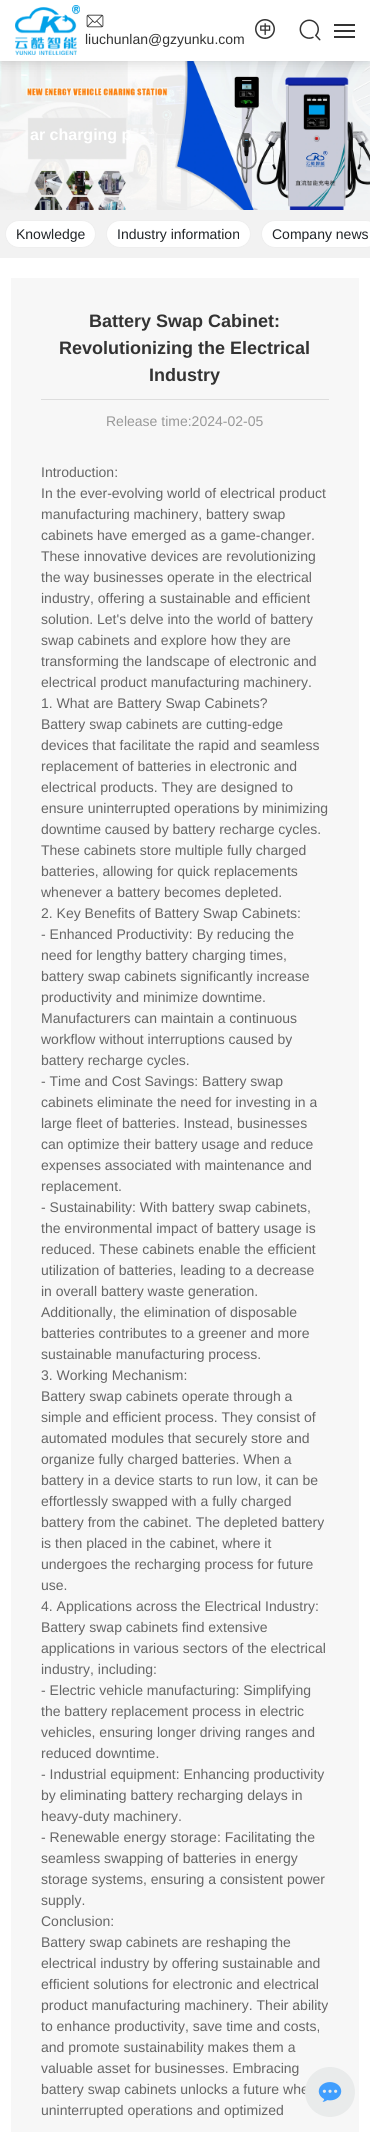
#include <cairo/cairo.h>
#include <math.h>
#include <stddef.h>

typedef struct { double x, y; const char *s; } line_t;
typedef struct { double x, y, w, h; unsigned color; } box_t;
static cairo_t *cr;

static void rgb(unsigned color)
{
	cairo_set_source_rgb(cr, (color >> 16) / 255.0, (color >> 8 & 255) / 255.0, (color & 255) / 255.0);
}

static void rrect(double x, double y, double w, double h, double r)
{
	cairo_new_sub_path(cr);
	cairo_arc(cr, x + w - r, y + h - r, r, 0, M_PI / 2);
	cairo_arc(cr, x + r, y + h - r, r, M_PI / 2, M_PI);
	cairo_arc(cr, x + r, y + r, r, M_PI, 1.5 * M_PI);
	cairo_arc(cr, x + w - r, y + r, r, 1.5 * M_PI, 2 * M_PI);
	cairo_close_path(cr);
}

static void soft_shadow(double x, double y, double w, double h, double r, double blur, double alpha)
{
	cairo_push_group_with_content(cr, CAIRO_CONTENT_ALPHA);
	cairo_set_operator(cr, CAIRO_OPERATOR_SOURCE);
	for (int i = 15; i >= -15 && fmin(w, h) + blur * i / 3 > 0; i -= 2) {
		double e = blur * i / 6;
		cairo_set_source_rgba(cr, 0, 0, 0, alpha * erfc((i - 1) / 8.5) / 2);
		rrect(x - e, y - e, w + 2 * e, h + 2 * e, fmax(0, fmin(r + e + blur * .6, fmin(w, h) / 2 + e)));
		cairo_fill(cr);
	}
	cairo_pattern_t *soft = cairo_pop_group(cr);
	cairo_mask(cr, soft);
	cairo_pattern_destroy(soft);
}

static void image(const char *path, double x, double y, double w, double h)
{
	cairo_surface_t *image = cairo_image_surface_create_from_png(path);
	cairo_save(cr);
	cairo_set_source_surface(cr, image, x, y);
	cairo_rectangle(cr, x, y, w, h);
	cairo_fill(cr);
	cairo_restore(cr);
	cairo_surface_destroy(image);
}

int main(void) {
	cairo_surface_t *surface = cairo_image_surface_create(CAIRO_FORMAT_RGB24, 370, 2132);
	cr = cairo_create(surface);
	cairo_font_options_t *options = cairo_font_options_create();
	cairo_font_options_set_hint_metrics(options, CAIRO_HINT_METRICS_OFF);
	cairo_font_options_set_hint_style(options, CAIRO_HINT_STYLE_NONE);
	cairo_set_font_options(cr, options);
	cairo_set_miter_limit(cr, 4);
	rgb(0xffffff);
	cairo_paint(cr);
	image("img/5.png", 0, 61, 370, 149);
	rgb(0x000000);
	soft_shadow(0, 0, 370, 61, 0, 7.5, 0.2);
	rgb(0xffffff);
	cairo_rectangle(cr, 0, 0, 370, 61);
	cairo_fill(cr);
	image("img/1.png", 15, 5, 65, 50);
	{
		static const box_t items[] = {
			{334, 24, 21, 2, 0x333333},
			{334, 30, 21, 2, 0x333333},
			{334, 36, 21, 2, 0x333333},
		};
		for (size_t i = 0; i < sizeof items / sizeof *items; i++) {
			rgb(items[i].color);
			cairo_rectangle(cr, items[i].x, items[i].y, items[i].w, items[i].h);
			cairo_fill(cr);
		}
	}
	image("img/2.png", 86, 14, 18, 14);
	image("img/3.png", 255, 19, 20, 20);
	image("img/4.png", 299, 19, 22, 22);
	rgb(0xf2f2f2);
	cairo_rectangle(cr, 0, 210, 370, 48);
	cairo_fill(cr);
	rgb(0xffffff);
	rrect(5.5, 220.5, 90, 27, 13.5);
	cairo_fill_preserve(cr);
	rgb(0xeeeeee);
	cairo_set_line_width(cr, 1);
	cairo_stroke(cr);
	rgb(0xffffff);
	rrect(106.5, 220.5, 144, 27, 13.5);
	cairo_fill_preserve(cr);
	rgb(0xeeeeee);
	cairo_stroke(cr);
	rgb(0xffffff);
	rrect(261.5, 220.5, 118, 27, 13.5);
	cairo_fill_preserve(cr);
	rgb(0xeeeeee);
	cairo_stroke(cr);
	rgb(0xf7f7f7);
	cairo_rectangle(cr, 11, 278, 348, 1854);
	cairo_fill(cr);
	rgb(0xdddddd);
	cairo_rectangle(cr, 41, 399, 288, 1);
	cairo_fill(cr);
	cairo_select_font_face(cr, "Liberation Sans", CAIRO_FONT_SLANT_NORMAL, CAIRO_FONT_WEIGHT_NORMAL);
	cairo_set_font_size(cr, 14);
	rgb(0x333333);
	cairo_move_to(cr, 85, 44);
	cairo_show_text(cr, "liuchunlan@gzyunku.com");
	cairo_select_font_face(cr, "Liberation Sans", CAIRO_FONT_SLANT_NORMAL, CAIRO_FONT_WEIGHT_BOLD);
	cairo_set_font_size(cr, 16);
	rgb(0xffffff);
	cairo_move_to(cr, 30, 140);
	cairo_show_text(cr, "ar charging p");
	cairo_select_font_face(cr, "Liberation Sans", CAIRO_FONT_SLANT_NORMAL, CAIRO_FONT_WEIGHT_NORMAL);
	cairo_set_font_size(cr, 14);
	rgb(0x212529);
	{
		static const line_t items[] = {
			{16, 239, "Knowledge"},
			{117, 239, "Industry information"},
			{272, 239, "Company news"},
		};
		for (size_t i = 0; i < sizeof items / sizeof *items; i++) {
			cairo_move_to(cr, items[i].x, items[i].y);
			cairo_show_text(cr, items[i].s);
		}
	}
	cairo_select_font_face(cr, "Liberation Sans", CAIRO_FONT_SLANT_NORMAL, CAIRO_FONT_WEIGHT_BOLD);
	cairo_set_font_size(cr, 18);
	rgb(0x333333);
	{
		static const line_t items[] = {
			{89, 327, "Battery Swap Cabinet:"},
			{59, 354, "Revolutionizing the Electrical"},
			{149, 381, "Industry"},
		};
		for (size_t i = 0; i < sizeof items / sizeof *items; i++) {
			cairo_move_to(cr, items[i].x, items[i].y);
			cairo_show_text(cr, items[i].s);
		}
	}
	cairo_select_font_face(cr, "Liberation Sans", CAIRO_FONT_SLANT_NORMAL, CAIRO_FONT_WEIGHT_NORMAL);
	cairo_set_font_size(cr, 14);
	rgb(0x999999);
	cairo_move_to(cr, 106, 426);
	cairo_show_text(cr, "Release time:2024-02-05");
	rgb(0x666666);
	{
		static const line_t items[] = {
			{41, 477, "Introduction:"},
			{41, 498, "In the ever-evolving world of electrical product"},
			{41, 519, "manufacturing machinery, battery swap"},
			{41, 540, "cabinets have emerged as a game-changer."},
			{41, 561, "These innovative devices are revolutionizing"},
			{41, 582, "the way businesses operate in the electrical"},
			{41, 603, "industry, offering a sustainable and efficient"},
			{41, 624, "solution. Let's delve into the world of battery"},
			{41, 645, "swap cabinets and explore how they are"},
			{41, 666, "transforming the landscape of electronic and"},
			{41, 687, "electrical product manufacturing machinery."},
			{41, 708, "1. What are Battery Swap Cabinets?"},
			{41, 729, "Battery swap cabinets are cutting-edge"},
			{41, 750, "devices that facilitate the rapid and seamless"},
			{41, 771, "replacement of batteries in electronic and"},
			{41, 792, "electrical products. They are designed to"},
			{41, 813, "ensure uninterrupted operations by minimizing"},
			{41, 834, "downtime caused by battery recharge cycles."},
			{41, 855, "These cabinets store multiple fully charged"},
			{41, 876, "batteries, allowing for quick replacements"},
			{41, 897, "whenever a battery becomes depleted."},
			{41, 918, "2. Key Benefits of Battery Swap Cabinets:"},
			{41, 939, "- Enhanced Productivity: By reducing the"},
			{41, 960, "need for lengthy battery charging times,"},
			{41, 981, "battery swap cabinets significantly increase"},
			{41, 1002, "productivity and minimize downtime."},
			{41, 1023, "Manufacturers can maintain a continuous"},
			{41, 1044, "workflow without interruptions caused by"},
			{41, 1065, "battery recharge cycles."},
			{41, 1086, "- Time and Cost Savings: Battery swap"},
			{41, 1107, "cabinets eliminate the need for investing in a"},
			{41, 1128, "large fleet of batteries. Instead, businesses"},
			{41, 1149, "can optimize their battery usage and reduce"},
			{41, 1170, "expenses associated with maintenance and"},
			{41, 1191, "replacement."},
			{41, 1212, "- Sustainability: With battery swap cabinets,"},
			{41, 1233, "the environmental impact of battery usage is"},
			{41, 1254, "reduced. These cabinets enable the efficient"},
			{41, 1275, "utilization of batteries, leading to a decrease"},
			{41, 1296, "in overall battery waste generation."},
			{41, 1317, "Additionally, the elimination of disposable"},
			{41, 1338, "batteries contributes to a greener and more"},
			{41, 1359, "sustainable manufacturing process."},
			{41, 1380, "3. Working Mechanism:"},
			{41, 1401, "Battery swap cabinets operate through a"},
			{41, 1422, "simple and efficient process. They consist of"},
			{41, 1443, "automated modules that securely store and"},
			{41, 1464, "organize fully charged batteries. When a"},
			{41, 1485, "battery in a device starts to run low, it can be"},
			{41, 1506, "effortlessly swapped with a fully charged"},
			{41, 1527, "battery from the cabinet. The depleted battery"},
			{41, 1548, "is then placed in the cabinet, where it"},
			{41, 1569, "undergoes the recharging process for future"},
			{41, 1590, "use."},
			{41, 1611, "4. Applications across the Electrical Industry:"},
			{41, 1632, "Battery swap cabinets find extensive"},
			{41, 1653, "applications in various sectors of the electrical"},
			{41, 1674, "industry, including:"},
			{41, 1695, "- Electric vehicle manufacturing: Simplifying"},
			{41, 1716, "the battery replacement process in electric"},
			{41, 1737, "vehicles, ensuring longer driving ranges and"},
			{41, 1758, "reduced downtime."},
			{41, 1779, "- Industrial equipment: Enhancing productivity"},
			{41, 1800, "by eliminating battery recharging delays in"},
			{41, 1821, "heavy-duty machinery."},
			{41, 1842, "- Renewable energy storage: Facilitating the"},
			{41, 1863, "seamless swapping of batteries in energy"},
			{41, 1884, "storage systems, ensuring a consistent power"},
			{41, 1905, "supply."},
			{41, 1926, "Conclusion:"},
			{41, 1947, "Battery swap cabinets are reshaping the"},
			{41, 1968, "electrical industry by offering sustainable and"},
			{41, 1989, "efficient solutions for electronic and electrical"},
			{41, 2010, "product manufacturing machinery. Their ability"},
			{41, 2031, "to enhance productivity, save time and costs,"},
			{41, 2052, "and promote sustainability makes them a"},
			{41, 2073, "valuable asset for businesses. Embracing"},
			{41, 2094, "battery swap cabinets unlocks a future whe"},
			{41, 2115, "uninterrupted operations and optimized"},
		};
		for (size_t i = 0; i < sizeof items / sizeof *items; i++) {
			cairo_move_to(cr, items[i].x, items[i].y);
			cairo_show_text(cr, items[i].s);
		}
	}
	rgb(0xe9ebeb);
	cairo_new_path(cr);
	cairo_arc(cr, 330, 2092, 25, 0, 2 * M_PI);
	cairo_fill(cr);
	image("img/6.png", 318, 2082, 24, 20);
	cairo_surface_write_to_png(surface, "page.png");
	cairo_font_options_destroy(options);
	cairo_destroy(cr);
	cairo_surface_destroy(surface);
	return 0;
}
